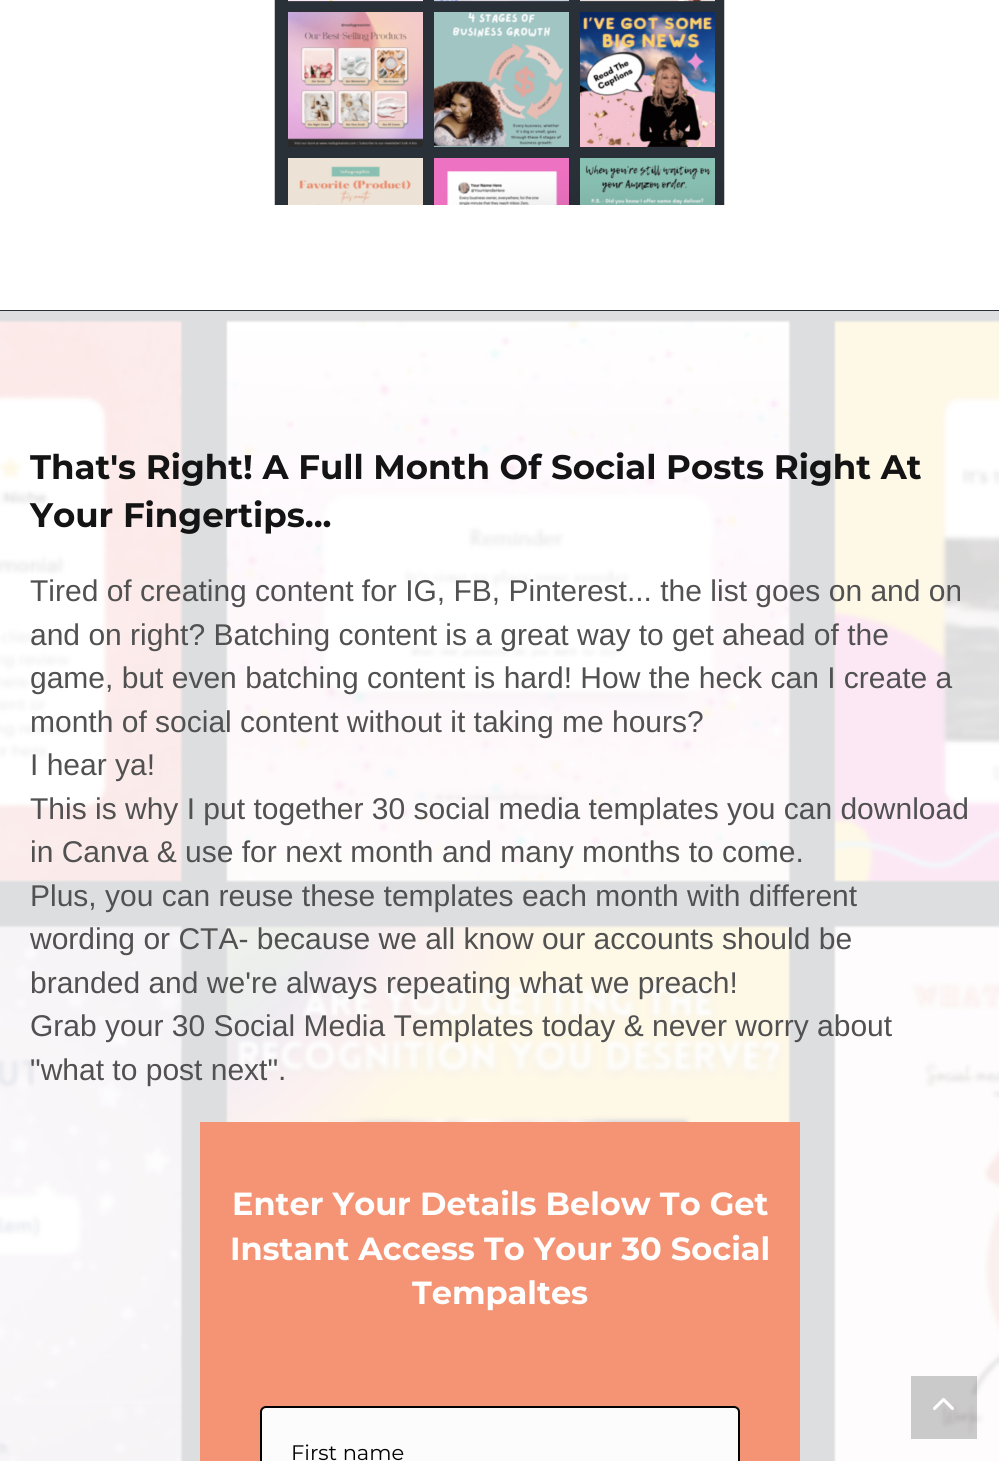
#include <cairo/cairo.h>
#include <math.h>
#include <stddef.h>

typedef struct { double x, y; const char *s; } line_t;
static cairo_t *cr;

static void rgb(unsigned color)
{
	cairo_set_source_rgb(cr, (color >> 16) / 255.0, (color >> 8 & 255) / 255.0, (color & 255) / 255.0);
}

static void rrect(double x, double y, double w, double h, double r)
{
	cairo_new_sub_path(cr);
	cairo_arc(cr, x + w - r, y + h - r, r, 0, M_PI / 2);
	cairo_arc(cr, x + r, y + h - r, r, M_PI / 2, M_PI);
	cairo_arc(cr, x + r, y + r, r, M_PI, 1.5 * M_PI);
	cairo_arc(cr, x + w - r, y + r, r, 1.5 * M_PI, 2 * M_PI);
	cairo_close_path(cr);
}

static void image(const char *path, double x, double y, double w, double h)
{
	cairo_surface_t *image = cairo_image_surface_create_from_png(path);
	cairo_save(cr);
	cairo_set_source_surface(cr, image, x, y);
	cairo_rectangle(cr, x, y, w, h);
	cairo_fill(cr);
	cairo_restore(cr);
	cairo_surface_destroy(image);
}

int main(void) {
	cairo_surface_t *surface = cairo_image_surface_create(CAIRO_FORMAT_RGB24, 999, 1461);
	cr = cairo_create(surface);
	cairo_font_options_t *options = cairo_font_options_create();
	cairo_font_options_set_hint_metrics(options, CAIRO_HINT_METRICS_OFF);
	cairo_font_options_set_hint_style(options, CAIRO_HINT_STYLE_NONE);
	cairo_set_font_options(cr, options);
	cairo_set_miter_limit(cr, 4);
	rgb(0xffffff);
	cairo_paint(cr);
	image("img/1.png", 274, 0, 451, 205);
	image("img/2.png", 0, 310, 999, 1151);
	rgb(0xf59475);
	cairo_rectangle(cr, 200, 1122, 600, 339);
	cairo_fill(cr);
	rgb(0xfcfcfc);
	rrect(261, 1407, 478, 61, 5);
	cairo_fill_preserve(cr);
	rgb(0x000000);
	cairo_stroke(cr);
	cairo_set_source_rgba(cr, 0, 0, 0, 0.2);
	cairo_rectangle(cr, 911, 1376, 66, 63);
	cairo_fill(cr);
	image("img/3.png", 933, 1398, 21, 12);
	cairo_select_font_face(cr, "Montserrat", CAIRO_FONT_SLANT_NORMAL, CAIRO_FONT_WEIGHT_BOLD);
	cairo_set_font_size(cr, 34);
	rgb(0x141414);
	cairo_move_to(cr, 30, 479);
	cairo_show_text(cr, "That's Right! A Full Month Of Social Posts Right At");
	cairo_move_to(cr, 30, 527);
	cairo_show_text(cr, "Your Fingertips...");
	cairo_select_font_face(cr, "Liberation Sans", CAIRO_FONT_SLANT_NORMAL, CAIRO_FONT_WEIGHT_NORMAL);
	cairo_set_font_size(cr, 30);
	rgb(0x515151);
	{
		static const line_t items[] = {
			{30, 601, "Tired of creating content for IG, FB, Pinterest... the list goes on and on"},
			{30, 645, "and on right? Batching content is a great way to get ahead of the"},
			{30, 688, "game, but even batching content is hard! How the heck can I create a"},
			{30, 732, "month of social content without it taking me hours?"},
			{30, 775, "I hear ya!"},
			{30, 819, "This is why I put together 30 social media templates you can download"},
			{30, 862, "in Canva & use for next month and many months to come."},
			{30, 906, "Plus, you can reuse these templates each month with different"},
			{30, 949, "wording or CTA- because we all know our accounts should be"},
			{30, 993, "branded and we're always repeating what we preach!"},
			{30, 1036, "Grab your 30 Social Media Templates today & never worry about"},
			{30, 1080, "\"what to post next\"."},
		};
		for (size_t i = 0; i < sizeof items / sizeof *items; i++) {
			cairo_move_to(cr, items[i].x, items[i].y);
			cairo_show_text(cr, items[i].s);
		}
	}
	cairo_select_font_face(cr, "Montserrat", CAIRO_FONT_SLANT_NORMAL, CAIRO_FONT_WEIGHT_BOLD);
	cairo_set_font_size(cr, 32);
	rgb(0xffffff);
	{
		static const line_t items[] = {
			{232, 1215, "Enter Your Details Below To Get"},
			{230, 1260, "Instant Access To Your 30 Social"},
			{412, 1304, "Tempaltes"},
		};
		for (size_t i = 0; i < sizeof items / sizeof *items; i++) {
			cairo_move_to(cr, items[i].x, items[i].y);
			cairo_show_text(cr, items[i].s);
		}
	}
	cairo_select_font_face(cr, "Montserrat", CAIRO_FONT_SLANT_NORMAL, CAIRO_FONT_WEIGHT_NORMAL);
	cairo_set_font_size(cr, 21);
	rgb(0x000000);
	cairo_move_to(cr, 291, 1460);
	cairo_show_text(cr, "First name");
	cairo_surface_write_to_png(surface, "page.png");
	cairo_font_options_destroy(options);
	cairo_destroy(cr);
	cairo_surface_destroy(surface);
	return 0;
}
